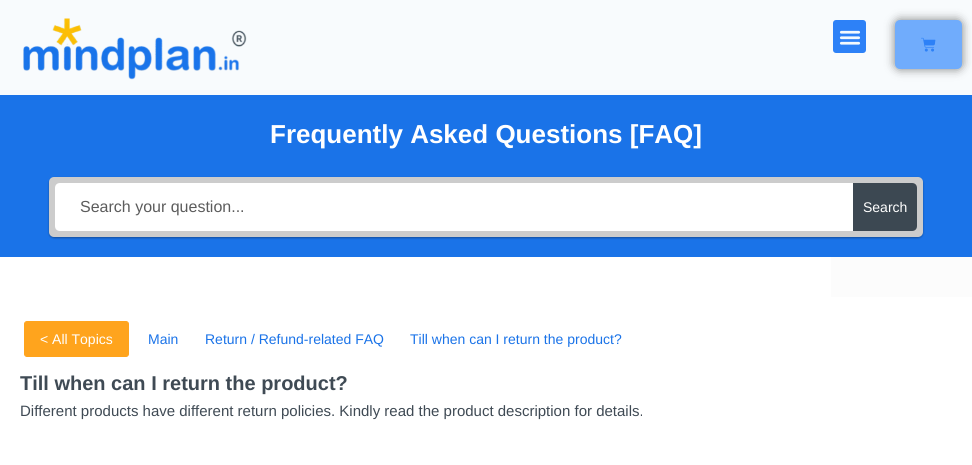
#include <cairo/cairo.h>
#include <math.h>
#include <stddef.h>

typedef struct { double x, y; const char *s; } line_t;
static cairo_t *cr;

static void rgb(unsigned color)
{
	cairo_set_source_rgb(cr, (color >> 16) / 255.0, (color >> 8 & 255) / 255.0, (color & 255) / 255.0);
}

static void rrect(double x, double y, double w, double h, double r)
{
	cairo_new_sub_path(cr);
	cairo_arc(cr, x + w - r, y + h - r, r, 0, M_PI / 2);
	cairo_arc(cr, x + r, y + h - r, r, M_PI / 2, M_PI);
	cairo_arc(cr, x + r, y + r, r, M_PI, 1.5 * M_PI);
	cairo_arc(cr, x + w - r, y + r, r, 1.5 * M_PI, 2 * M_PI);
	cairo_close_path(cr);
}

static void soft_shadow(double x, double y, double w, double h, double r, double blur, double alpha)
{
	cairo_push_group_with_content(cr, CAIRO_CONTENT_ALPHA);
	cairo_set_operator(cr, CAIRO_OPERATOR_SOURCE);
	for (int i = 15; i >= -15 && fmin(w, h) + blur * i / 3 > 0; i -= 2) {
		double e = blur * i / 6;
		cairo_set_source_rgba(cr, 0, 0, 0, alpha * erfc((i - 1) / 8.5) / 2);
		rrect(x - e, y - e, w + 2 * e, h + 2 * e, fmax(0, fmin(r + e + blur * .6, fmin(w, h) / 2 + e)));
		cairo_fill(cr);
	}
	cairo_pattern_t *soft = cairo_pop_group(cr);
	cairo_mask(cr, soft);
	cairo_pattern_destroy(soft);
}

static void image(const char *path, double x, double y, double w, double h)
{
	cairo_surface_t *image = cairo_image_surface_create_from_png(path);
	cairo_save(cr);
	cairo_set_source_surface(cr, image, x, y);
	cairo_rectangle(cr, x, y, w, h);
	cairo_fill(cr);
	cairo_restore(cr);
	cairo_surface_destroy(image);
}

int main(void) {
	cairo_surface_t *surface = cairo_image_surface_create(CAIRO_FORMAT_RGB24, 972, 465);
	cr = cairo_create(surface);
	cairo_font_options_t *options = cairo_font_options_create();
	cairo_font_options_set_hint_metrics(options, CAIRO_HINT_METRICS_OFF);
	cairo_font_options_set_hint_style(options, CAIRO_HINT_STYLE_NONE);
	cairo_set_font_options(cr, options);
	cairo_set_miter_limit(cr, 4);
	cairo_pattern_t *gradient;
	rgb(0xffffff);
	cairo_paint(cr);
	gradient = cairo_pattern_create_linear(-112, 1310, 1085, 113);
	cairo_pattern_add_color_stop_rgba(gradient, 0, 1, 1, 1, 1);
	cairo_pattern_add_color_stop_rgba(gradient, 1, 0.988, 0.988, 0.988, 1);
	cairo_set_source(cr, gradient);
	cairo_pattern_destroy(gradient);
	cairo_rectangle(cr, 831, 257, 141, 40);
	cairo_fill(cr);
	rgb(0xf8fbfd);
	cairo_rectangle(cr, 0, 0, 972, 95);
	cairo_fill(cr);
	image("img/1.png", 23, 18, 224, 62);
	rgb(0x2d81f7);
	rrect(833, 20, 33, 33, 3);
	cairo_fill(cr);
	image("img/2.png", 839, 30, 22, 15);
	rgb(0x000000);
	soft_shadow(895, 20, 67, 49, 5, 5, 0.5);
	rgb(0x70acfc);
	rrect(895, 20, 67, 49, 5);
	cairo_fill(cr);
	image("img/3.png", 921, 37, 15, 15);
	rgb(0x1a73e8);
	cairo_rectangle(cr, 0, 95, 972, 162);
	cairo_fill(cr);
	rgb(0x000000);
	soft_shadow(49, 178, 874, 60, 5, 1, 0.32);
	rgb(0xcccccc);
	rrect(49, 177, 874, 60, 5);
	cairo_fill(cr);
	rgb(0xffffff);
	cairo_new_path(cr);
	cairo_move_to(cr, 60, 183);
	cairo_line_to(cr, 853, 183);
	cairo_line_to(cr, 853, 231);
	cairo_line_to(cr, 60, 231);
	cairo_curve_to(cr, 57, 231, 55, 229, 55, 226);
	cairo_line_to(cr, 55, 188);
	cairo_curve_to(cr, 55, 185, 57, 183, 60, 183);
	cairo_close_path(cr);
	cairo_fill(cr);
	rgb(0x3c4852);
	cairo_new_path(cr);
	cairo_move_to(cr, 853, 183);
	cairo_line_to(cr, 912, 183);
	cairo_curve_to(cr, 915, 183, 917, 185, 917, 188);
	cairo_line_to(cr, 917, 226);
	cairo_curve_to(cr, 917, 229, 915, 231, 912, 231);
	cairo_line_to(cr, 853, 231);
	cairo_close_path(cr);
	cairo_fill(cr);
	rgb(0xffa41d);
	rrect(24.5, 321.5, 104, 35, 2.5);
	cairo_fill_preserve(cr);
	cairo_set_line_width(cr, 1);
	cairo_stroke(cr);
	cairo_select_font_face(cr, "Liberation Sans", CAIRO_FONT_SLANT_NORMAL, CAIRO_FONT_WEIGHT_BOLD);
	cairo_set_font_size(cr, 26);
	rgb(0xffffff);
	cairo_move_to(cr, 270, 143);
	cairo_show_text(cr, "Frequently Asked Questions [FAQ]");
	cairo_select_font_face(cr, "Liberation Sans", CAIRO_FONT_SLANT_NORMAL, CAIRO_FONT_WEIGHT_NORMAL);
	cairo_set_font_size(cr, 16);
	rgb(0x5c5c5c);
	cairo_move_to(cr, 80, 212);
	cairo_show_text(cr, "Search your question...");
	cairo_set_font_size(cr, 14);
	rgb(0xffffff);
	cairo_move_to(cr, 863, 212);
	cairo_show_text(cr, "Search");
	cairo_move_to(cr, 40, 344);
	cairo_show_text(cr, "< All Topics");
	rgb(0x1a73e8);
	{
		static const line_t items[] = {
			{148, 344, "Main"},
			{205, 344, "Return / Refund-related FAQ"},
			{410, 344, "Till when can I return the product?"},
		};
		for (size_t i = 0; i < sizeof items / sizeof *items; i++) {
			cairo_move_to(cr, items[i].x, items[i].y);
			cairo_show_text(cr, items[i].s);
		}
	}
	cairo_select_font_face(cr, "Liberation Sans", CAIRO_FONT_SLANT_NORMAL, CAIRO_FONT_WEIGHT_BOLD);
	cairo_set_font_size(cr, 20);
	rgb(0x3f4a54);
	cairo_move_to(cr, 20, 390);
	cairo_show_text(cr, "Till when can I return the product?");
	cairo_select_font_face(cr, "Liberation Sans", CAIRO_FONT_SLANT_NORMAL, CAIRO_FONT_WEIGHT_NORMAL);
	cairo_set_font_size(cr, 15);
	cairo_move_to(cr, 20, 416);
	cairo_show_text(cr, "Different products have different return policies. Kindly read the product description for details.");
	cairo_surface_write_to_png(surface, "page.png");
	cairo_font_options_destroy(options);
	cairo_destroy(cr);
	cairo_surface_destroy(surface);
	return 0;
}
